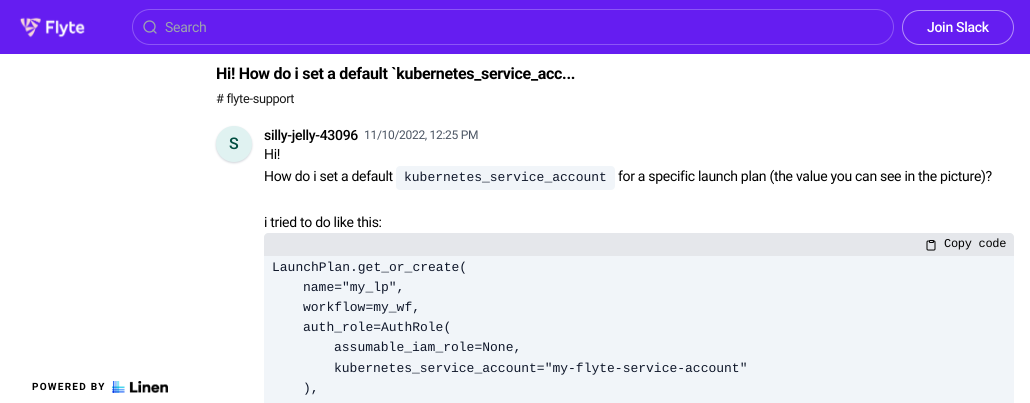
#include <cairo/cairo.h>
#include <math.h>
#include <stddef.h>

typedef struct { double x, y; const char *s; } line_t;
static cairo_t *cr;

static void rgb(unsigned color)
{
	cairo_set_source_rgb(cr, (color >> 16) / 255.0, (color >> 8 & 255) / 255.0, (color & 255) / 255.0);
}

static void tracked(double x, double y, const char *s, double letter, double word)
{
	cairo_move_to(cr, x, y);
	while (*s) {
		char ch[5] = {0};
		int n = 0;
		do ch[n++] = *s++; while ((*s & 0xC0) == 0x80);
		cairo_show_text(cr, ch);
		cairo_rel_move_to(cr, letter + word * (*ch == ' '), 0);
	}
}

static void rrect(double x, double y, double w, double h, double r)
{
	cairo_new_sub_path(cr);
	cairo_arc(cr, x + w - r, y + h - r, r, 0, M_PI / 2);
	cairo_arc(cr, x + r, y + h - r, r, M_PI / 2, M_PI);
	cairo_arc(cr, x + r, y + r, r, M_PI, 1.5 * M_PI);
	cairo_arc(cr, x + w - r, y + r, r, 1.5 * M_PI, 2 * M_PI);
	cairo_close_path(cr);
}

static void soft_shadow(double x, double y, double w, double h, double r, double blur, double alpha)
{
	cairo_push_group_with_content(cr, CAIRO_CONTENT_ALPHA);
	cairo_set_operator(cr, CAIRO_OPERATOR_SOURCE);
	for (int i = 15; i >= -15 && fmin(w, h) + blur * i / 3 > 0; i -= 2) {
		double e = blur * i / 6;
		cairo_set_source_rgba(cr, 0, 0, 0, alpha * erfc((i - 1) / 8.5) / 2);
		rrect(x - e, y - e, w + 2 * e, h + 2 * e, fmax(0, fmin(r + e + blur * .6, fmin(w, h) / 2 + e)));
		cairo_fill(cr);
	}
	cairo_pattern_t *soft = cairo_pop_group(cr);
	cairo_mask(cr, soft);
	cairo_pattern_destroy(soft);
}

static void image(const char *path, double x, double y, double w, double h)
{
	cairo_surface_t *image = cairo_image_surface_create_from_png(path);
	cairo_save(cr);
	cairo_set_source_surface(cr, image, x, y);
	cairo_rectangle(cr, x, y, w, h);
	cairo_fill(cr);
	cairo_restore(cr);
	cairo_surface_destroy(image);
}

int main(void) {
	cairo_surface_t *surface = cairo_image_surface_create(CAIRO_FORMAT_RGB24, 1030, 403);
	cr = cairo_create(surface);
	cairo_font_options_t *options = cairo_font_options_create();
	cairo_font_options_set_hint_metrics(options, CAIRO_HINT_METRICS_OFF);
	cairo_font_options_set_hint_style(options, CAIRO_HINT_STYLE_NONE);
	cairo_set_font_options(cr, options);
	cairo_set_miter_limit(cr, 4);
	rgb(0xffffff);
	cairo_paint(cr);
	rgb(0x651df1);
	cairo_rectangle(cr, 0, 0, 1030, 54);
	cairo_fill(cr);
	image("img/1.png", 19, 17, 66, 21);
	rrect(132.5, 9.5, 761, 35, 17.5);
	rgb(0x8c56f5);
	cairo_set_line_width(cr, 1);
	cairo_stroke(cr);
	cairo_arc(cr, 149.5, 26.5, 5.5, 0, 2 * M_PI);
	rgb(0x9ca3af);
	cairo_set_line_width(cr, 1.3);
	cairo_stroke(cr);
	cairo_new_path(cr);
	cairo_move_to(cr, 156, 33);
	cairo_line_to(cr, 153, 30);
	cairo_set_line_cap(cr, CAIRO_LINE_CAP_ROUND);
	cairo_set_line_join(cr, CAIRO_LINE_JOIN_ROUND);
	cairo_stroke(cr);
	rrect(902.5, 10.5, 111, 34, 17);
	rgb(0xb28ef8);
	cairo_set_line_width(cr, 1);
	cairo_set_line_cap(cr, CAIRO_LINE_CAP_BUTT);
	cairo_set_line_join(cr, CAIRO_LINE_JOIN_MITER);
	cairo_stroke(cr);
	image("img/2.png", 112, 381, 56, 12);
	rgb(0xd1d5db);
	soft_shadow(216, 127, 36, 36, 18, 1, 1);
	rgb(0xe0f2f1);
	cairo_arc(cr, 234, 144, 18, 0, 2 * M_PI);
	cairo_fill(cr);
	rgb(0xf1f5f9);
	rrect(396, 166, 219, 24, 4);
	cairo_fill(cr);
	rgb(0xe5e7eb);
	cairo_new_path(cr);
	cairo_move_to(cr, 268, 233);
	cairo_line_to(cr, 1010, 233);
	cairo_curve_to(cr, 1012, 233, 1014, 235, 1014, 237);
	cairo_line_to(cr, 1014, 256);
	cairo_line_to(cr, 264, 256);
	cairo_line_to(cr, 264, 237);
	cairo_curve_to(cr, 264, 235, 266, 233, 268, 233);
	cairo_close_path(cr);
	cairo_fill(cr);
	image("img/3.png", 926, 240, 10, 11);
	rgb(0xf1f5f9);
	cairo_rectangle(cr, 264, 256, 750, 147);
	cairo_fill(cr);
	cairo_select_font_face(cr, "Roboto", CAIRO_FONT_SLANT_NORMAL, CAIRO_FONT_WEIGHT_NORMAL);
	cairo_set_font_size(cr, 14);
	rgb(0x9ca3af);
	tracked(165, 32, "Search", -0.3, 0);
	cairo_select_font_face(cr, "Roboto Medium", CAIRO_FONT_SLANT_NORMAL, CAIRO_FONT_WEIGHT_NORMAL);
	rgb(0xffffff);
	tracked(927, 32, "Join Slack", -0.3, 0);
	cairo_select_font_face(cr, "Roboto", CAIRO_FONT_SLANT_NORMAL, CAIRO_FONT_WEIGHT_BOLD);
	cairo_set_font_size(cr, 10);
	rgb(0x000000);
	tracked(32, 390, "POWERED BY", 1.25, 0);
	cairo_set_font_size(cr, 16);
	tracked(216, 79, "Hi! How do i set a default `kubernetes_service_acc...", -0.3, 0);
	cairo_select_font_face(cr, "Roboto", CAIRO_FONT_SLANT_NORMAL, CAIRO_FONT_WEIGHT_NORMAL);
	cairo_set_font_size(cr, 12.75);
	rgb(0x1a1a1a);
	tracked(216, 103, "# flyte-support", -0.3, 0);
	cairo_select_font_face(cr, "Roboto Medium", CAIRO_FONT_SLANT_NORMAL, CAIRO_FONT_WEIGHT_NORMAL);
	cairo_set_font_size(cr, 16);
	rgb(0x004d40);
	tracked(229, 149, "S", -0.3, 0);
	cairo_set_font_size(cr, 14);
	rgb(0x000000);
	tracked(264, 140, "silly-jelly-43096", -0.3, 0);
	cairo_select_font_face(cr, "Roboto", CAIRO_FONT_SLANT_NORMAL, CAIRO_FONT_WEIGHT_NORMAL);
	cairo_set_font_size(cr, 12);
	rgb(0x4b5563);
	tracked(364, 139, "11/10/2022, 12:25 PM", -0.3, 0);
	cairo_set_font_size(cr, 14);
	rgb(0x000000);
	tracked(264, 159, "Hi!", -0.3, 0);
	tracked(264, 181, "How do i set a default", -0.3, 0);
	cairo_select_font_face(cr, "Liberation Mono", CAIRO_FONT_SLANT_NORMAL, CAIRO_FONT_WEIGHT_NORMAL);
	cairo_set_font_size(cr, 13);
	rgb(0x0f172a);
	cairo_move_to(cr, 404, 181);
	cairo_show_text(cr, "kubernetes_service_account");
	cairo_select_font_face(cr, "Roboto", CAIRO_FONT_SLANT_NORMAL, CAIRO_FONT_WEIGHT_NORMAL);
	cairo_set_font_size(cr, 14);
	rgb(0x000000);
	tracked(618, 181, "for a specific launch plan (the value you can see in the picture)?", -0.3, 0);
	tracked(264, 227, "i tried to do like this:", -0.3, 0);
	cairo_select_font_face(cr, "Liberation Mono", CAIRO_FONT_SLANT_NORMAL, CAIRO_FONT_WEIGHT_NORMAL);
	cairo_set_font_size(cr, 12);
	tracked(944, 247, "Copy code", -0.3, 0);
	cairo_set_font_size(cr, 13);
	rgb(0x0f172a);
	{
		static const line_t items[] = {
			{272, 271, "LaunchPlan.get_or_create("},
			{303, 291, "name=\"my_lp\","},
			{303, 311, "workflow=my_wf,"},
			{303, 331, "auth_role=AuthRole("},
			{334, 351, "assumable_iam_role=None,"},
			{334, 372, "kubernetes_service_account=\"my-flyte-service-account\""},
			{303, 392, "),"},
		};
		for (size_t i = 0; i < sizeof items / sizeof *items; i++) {
			cairo_move_to(cr, items[i].x, items[i].y);
			cairo_show_text(cr, items[i].s);
		}
	}
	cairo_surface_write_to_png(surface, "page.png");
	cairo_font_options_destroy(options);
	cairo_destroy(cr);
	cairo_surface_destroy(surface);
	return 0;
}
